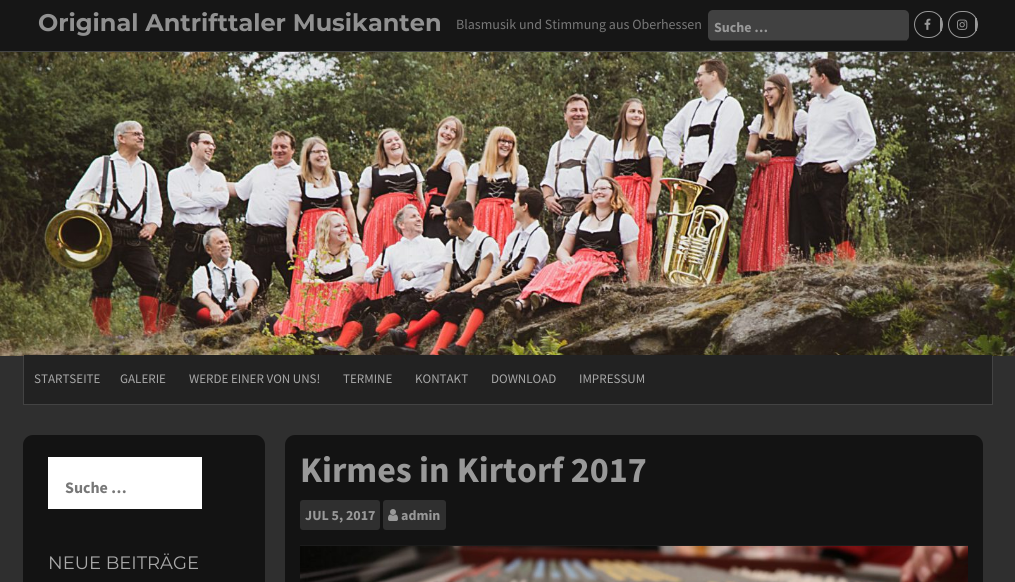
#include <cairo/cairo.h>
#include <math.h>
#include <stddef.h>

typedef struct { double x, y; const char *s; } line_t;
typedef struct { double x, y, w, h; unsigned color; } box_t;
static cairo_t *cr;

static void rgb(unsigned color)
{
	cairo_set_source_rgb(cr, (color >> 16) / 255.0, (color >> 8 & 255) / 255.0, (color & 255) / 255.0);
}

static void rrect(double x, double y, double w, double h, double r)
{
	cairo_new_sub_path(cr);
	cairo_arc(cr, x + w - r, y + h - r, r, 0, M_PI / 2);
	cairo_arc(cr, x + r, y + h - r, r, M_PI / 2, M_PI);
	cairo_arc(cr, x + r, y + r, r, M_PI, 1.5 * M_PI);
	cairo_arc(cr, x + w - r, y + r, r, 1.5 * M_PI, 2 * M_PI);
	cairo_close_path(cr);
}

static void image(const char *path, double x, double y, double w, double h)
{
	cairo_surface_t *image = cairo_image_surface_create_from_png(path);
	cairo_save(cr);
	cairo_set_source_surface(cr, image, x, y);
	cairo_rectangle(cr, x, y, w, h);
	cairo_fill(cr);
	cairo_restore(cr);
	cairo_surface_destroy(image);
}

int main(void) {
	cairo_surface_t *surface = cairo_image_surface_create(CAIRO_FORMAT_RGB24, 1015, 582);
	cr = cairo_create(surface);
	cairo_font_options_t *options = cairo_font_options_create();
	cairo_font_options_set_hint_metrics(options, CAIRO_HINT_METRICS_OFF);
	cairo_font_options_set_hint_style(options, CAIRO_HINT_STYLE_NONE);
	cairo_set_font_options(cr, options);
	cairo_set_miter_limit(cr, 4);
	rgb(0x2f2f2f);
	cairo_paint(cr);
	rgb(0x161616);
	cairo_rectangle(cr, 0, 0, 1015, 51);
	cairo_fill(cr);
	rgb(0x434343);
	cairo_rectangle(cr, 0, 51, 1015, 1);
	cairo_fill(cr);
	rgb(0x414141);
	rrect(708, 10, 201, 31, 5);
	cairo_fill(cr);
	rgb(0x2a2a2a);
	cairo_rectangle(cr, 711, 40, 196, 1);
	cairo_fill(cr);
	rrect(914.5, 11.5, 28, 26, 13);
	rgb(0x999999);
	cairo_set_line_width(cr, 1);
	cairo_stroke(cr);
	cairo_rectangle(cr, 940, 18, 2, 13);
	cairo_fill(cr);
	image("img/1.png", 924, 18, 7, 12);
	rrect(948.5, 11.5, 29, 26, 13);
	cairo_stroke(cr);
	cairo_rectangle(cr, 975, 18, 2, 13);
	cairo_fill(cr);
	image("img/2.png", 957, 19, 11, 11);
	image("img/3.png", 0, 52, 1015, 304);
	{
		static const box_t items[] = {
			{24, 356, 968, 48, 0x222222},
			{992, 356, 1, 49, 0x434343},
			{23, 404, 970, 1, 0x434343},
			{23, 356, 1, 49, 0x434343},
			{24, 355, 968, 1, 0x222222},
		};
		for (size_t i = 0; i < sizeof items / sizeof *items; i++) {
			rgb(items[i].color);
			cairo_rectangle(cr, items[i].x, items[i].y, items[i].w, items[i].h);
			cairo_fill(cr);
		}
	}
	rgb(0x131313);
	rrect(23, 435, 242, 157, 10);
	cairo_fill(cr);
	rgb(0xffffff);
	cairo_rectangle(cr, 48, 457, 154, 52);
	cairo_fill(cr);
	rgb(0x131313);
	rrect(285, 435, 698, 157, 10);
	cairo_fill(cr);
	rgb(0x1b1b1b);
	cairo_rectangle(cr, 300, 545, 668, 1);
	cairo_fill(cr);
	rgb(0x2f2f2f);
	rrect(300, 500, 80, 30, 3);
	cairo_fill(cr);
	rrect(383, 500, 63, 30, 3);
	cairo_fill(cr);
	image("img/4.png", 388, 509, 10, 12);
	image("img/5.png", 300, 546, 668, 36);
	cairo_select_font_face(cr, "Montserrat", CAIRO_FONT_SLANT_NORMAL, CAIRO_FONT_WEIGHT_BOLD);
	cairo_set_font_size(cr, 24);
	rgb(0x919191);
	cairo_move_to(cr, 38, 31);
	cairo_show_text(cr, "Original Antrifttaler Musikanten");
	cairo_select_font_face(cr, "Source Sans Pro", CAIRO_FONT_SLANT_NORMAL, CAIRO_FONT_WEIGHT_NORMAL);
	cairo_set_font_size(cr, 14);
	rgb(0x777777);
	cairo_move_to(cr, 456, 29);
	cairo_show_text(cr, "Blasmusik und Stimmung aus Oberhessen");
	cairo_select_font_face(cr, "Source Sans Pro", CAIRO_FONT_SLANT_NORMAL, CAIRO_FONT_WEIGHT_BOLD);
	rgb(0x999999);
	cairo_move_to(cr, 714, 32);
	cairo_show_text(cr, "Suche …");
	cairo_select_font_face(cr, "Source Sans Pro", CAIRO_FONT_SLANT_NORMAL, CAIRO_FONT_WEIGHT_NORMAL);
	cairo_set_font_size(cr, 13);
	rgb(0xa8a8a8);
	{
		static const line_t items[] = {
			{34, 383, "STARTSEITE"},
			{120, 383, "GALERIE"},
			{189, 383, "WERDE EINER VON UNS!"},
			{343, 383, "TERMINE"},
			{415, 383, "KONTAKT"},
			{491, 383, "DOWNLOAD"},
			{579, 383, "IMPRESSUM"},
		};
		for (size_t i = 0; i < sizeof items / sizeof *items; i++) {
			cairo_move_to(cr, items[i].x, items[i].y);
			cairo_show_text(cr, items[i].s);
		}
	}
	cairo_select_font_face(cr, "Source Sans Pro", CAIRO_FONT_SLANT_NORMAL, CAIRO_FONT_WEIGHT_BOLD);
	cairo_set_font_size(cr, 16);
	rgb(0x777777);
	cairo_move_to(cr, 65, 493);
	cairo_show_text(cr, "Suche …");
	cairo_select_font_face(cr, "Montserrat", CAIRO_FONT_SLANT_NORMAL, CAIRO_FONT_WEIGHT_NORMAL);
	cairo_set_font_size(cr, 18);
	rgb(0xa8a8a8);
	cairo_move_to(cr, 48, 569);
	cairo_show_text(cr, "NEUE BEITRÄGE");
	cairo_select_font_face(cr, "Source Sans Pro", CAIRO_FONT_SLANT_NORMAL, CAIRO_FONT_WEIGHT_BOLD);
	cairo_set_font_size(cr, 36);
	rgb(0x999999);
	cairo_move_to(cr, 300, 482);
	cairo_show_text(cr, "Kirmes in Kirtorf 2017");
	cairo_set_font_size(cr, 14);
	cairo_move_to(cr, 305, 520);
	cairo_show_text(cr, "JUL 5, 2017");
	cairo_move_to(cr, 401, 520);
	cairo_show_text(cr, "admin");
	cairo_surface_write_to_png(surface, "page.png");
	cairo_font_options_destroy(options);
	cairo_destroy(cr);
	cairo_surface_destroy(surface);
	return 0;
}
